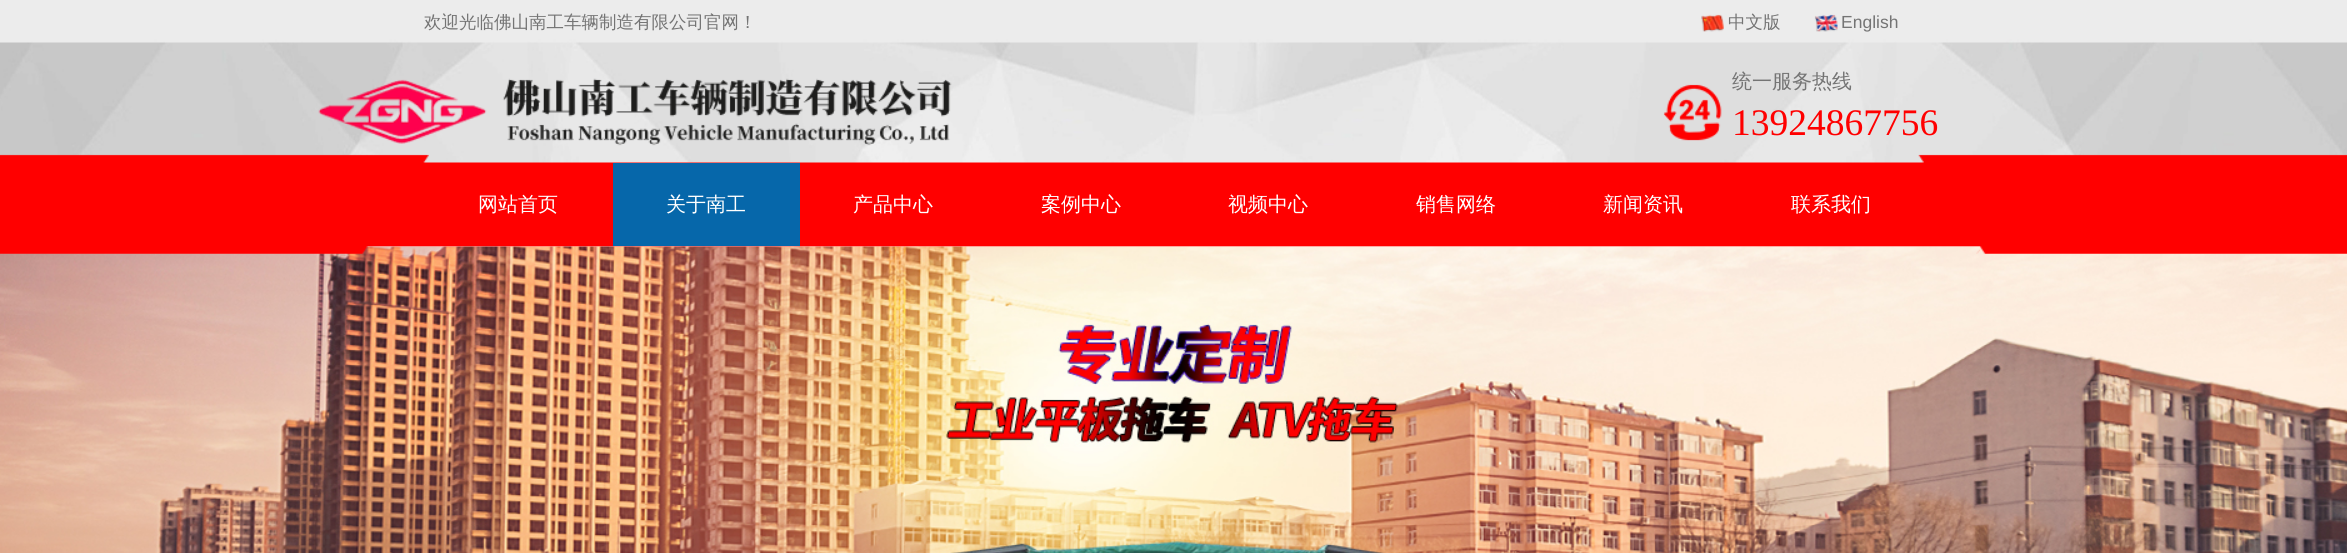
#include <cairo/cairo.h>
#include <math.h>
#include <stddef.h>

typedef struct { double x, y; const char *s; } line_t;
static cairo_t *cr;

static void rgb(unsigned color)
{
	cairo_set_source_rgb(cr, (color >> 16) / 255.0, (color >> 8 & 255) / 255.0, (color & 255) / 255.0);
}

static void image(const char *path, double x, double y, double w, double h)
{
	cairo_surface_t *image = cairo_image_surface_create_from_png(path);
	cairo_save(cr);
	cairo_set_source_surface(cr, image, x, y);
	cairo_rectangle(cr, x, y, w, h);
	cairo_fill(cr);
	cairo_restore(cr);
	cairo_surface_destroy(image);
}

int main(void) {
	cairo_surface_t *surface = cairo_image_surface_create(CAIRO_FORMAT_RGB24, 2347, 553);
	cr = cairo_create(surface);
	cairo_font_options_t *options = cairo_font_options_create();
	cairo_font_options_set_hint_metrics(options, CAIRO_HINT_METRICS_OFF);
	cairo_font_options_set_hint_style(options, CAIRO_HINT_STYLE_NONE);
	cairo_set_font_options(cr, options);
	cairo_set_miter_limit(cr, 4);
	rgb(0xffffff);
	cairo_paint(cr);
	image("img/1.png", 0, 0, 2347, 163);
	image("img/2.png", 1701, 14, 23, 18);
	image("img/3.png", 1814, 14, 24, 18);
	image("img/4.png", 318, 78, 634, 68);
	image("img/5.png", 1663, 84, 59, 57);
	image("img/7.png", 0, 246, 2347, 307);
	image("img/6.png", 0, 154, 2347, 100);
	rgb(0x0667aa);
	cairo_rectangle(cr, 613, 163, 187, 83);
	cairo_fill(cr);
	cairo_select_font_face(cr, "WenQuanYi Zen Hei Medium", CAIRO_FONT_SLANT_NORMAL, CAIRO_FONT_WEIGHT_NORMAL);
	cairo_set_font_size(cr, 17.5);
	rgb(0x747474);
	cairo_move_to(cr, 424, 28);
	cairo_show_text(cr, "欢迎光临佛山南工车辆制造有限公司官网！");
	cairo_move_to(cr, 1728, 28);
	cairo_show_text(cr, "中文版");
	cairo_select_font_face(cr, "Liberation Sans", CAIRO_FONT_SLANT_NORMAL, CAIRO_FONT_WEIGHT_NORMAL);
	cairo_move_to(cr, 1841, 28);
	cairo_show_text(cr, "English");
	cairo_select_font_face(cr, "WenQuanYi Zen Hei Medium", CAIRO_FONT_SLANT_NORMAL, CAIRO_FONT_WEIGHT_NORMAL);
	cairo_set_font_size(cr, 20);
	cairo_move_to(cr, 1732, 88);
	cairo_show_text(cr, "统一服务热线");
	cairo_select_font_face(cr, "Liberation Serif", CAIRO_FONT_SLANT_NORMAL, CAIRO_FONT_WEIGHT_NORMAL);
	cairo_set_font_size(cr, 37.5);
	rgb(0xff0000);
	cairo_move_to(cr, 1732, 135);
	cairo_show_text(cr, "13924867756");
	cairo_select_font_face(cr, "WenQuanYi Zen Hei Medium", CAIRO_FONT_SLANT_NORMAL, CAIRO_FONT_WEIGHT_NORMAL);
	cairo_set_font_size(cr, 20);
	rgb(0xffffff);
	{
		static const line_t items[] = {
			{478, 211, "网站首页"},
			{666, 211, "关于南工"},
			{853, 211, "产品中心"},
			{1041, 211, "案例中心"},
			{1228, 211, "视频中心"},
			{1416, 211, "销售网络"},
			{1603, 211, "新闻资讯"},
			{1791, 211, "联系我们"},
		};
		for (size_t i = 0; i < sizeof items / sizeof *items; i++) {
			cairo_move_to(cr, items[i].x, items[i].y);
			cairo_show_text(cr, items[i].s);
		}
	}
	cairo_surface_write_to_png(surface, "page.png");
	cairo_font_options_destroy(options);
	cairo_destroy(cr);
	cairo_surface_destroy(surface);
	return 0;
}
